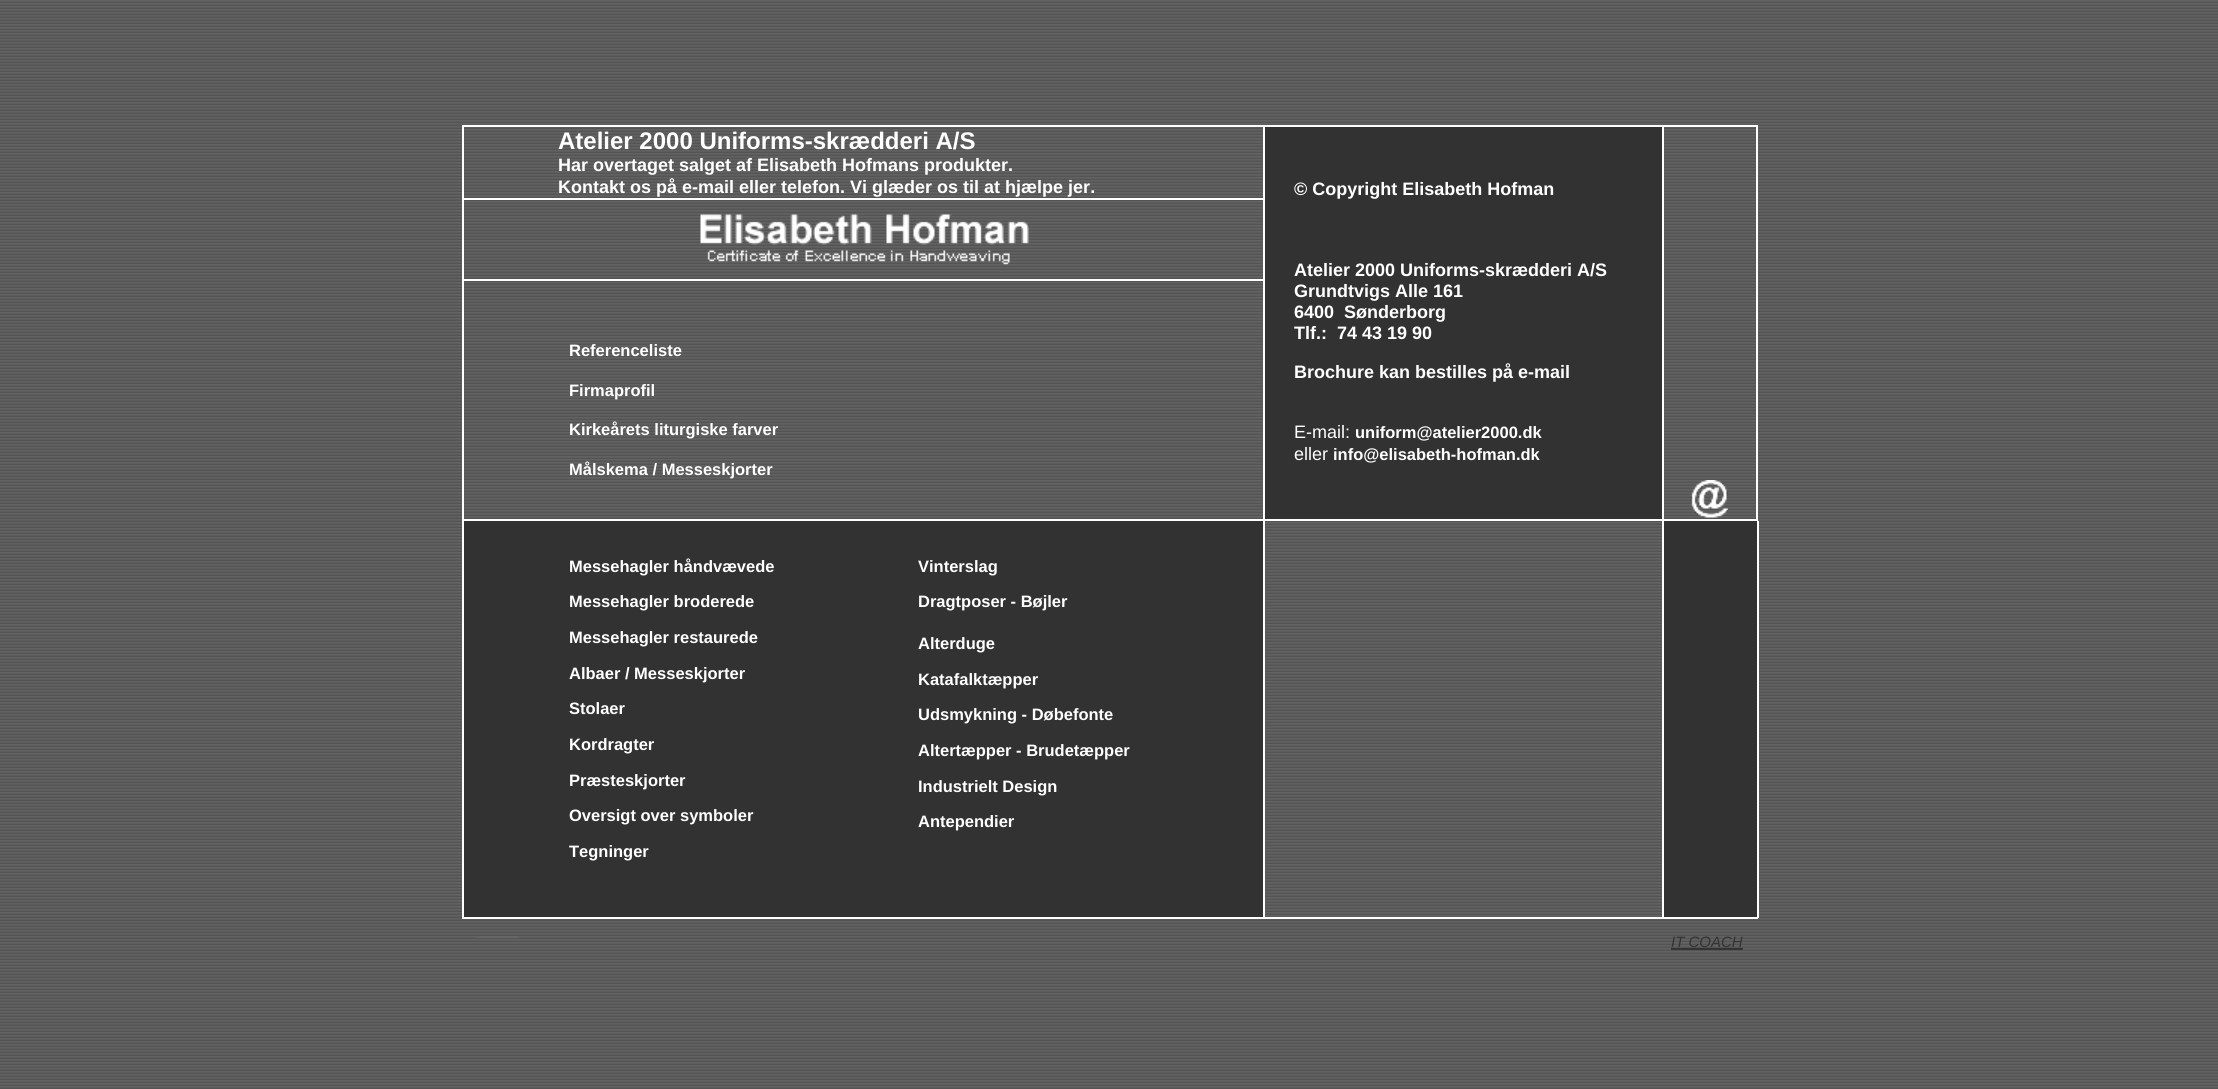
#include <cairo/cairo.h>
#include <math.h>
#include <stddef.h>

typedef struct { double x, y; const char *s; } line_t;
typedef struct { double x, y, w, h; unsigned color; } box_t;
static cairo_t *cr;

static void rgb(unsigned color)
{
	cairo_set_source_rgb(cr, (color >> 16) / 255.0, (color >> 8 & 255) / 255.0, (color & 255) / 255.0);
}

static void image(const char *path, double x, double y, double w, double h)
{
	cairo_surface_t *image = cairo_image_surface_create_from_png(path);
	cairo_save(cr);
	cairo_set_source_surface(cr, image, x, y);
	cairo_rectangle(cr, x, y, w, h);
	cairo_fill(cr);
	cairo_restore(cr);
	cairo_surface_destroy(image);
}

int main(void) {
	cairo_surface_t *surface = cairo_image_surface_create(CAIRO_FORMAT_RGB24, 2218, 1089);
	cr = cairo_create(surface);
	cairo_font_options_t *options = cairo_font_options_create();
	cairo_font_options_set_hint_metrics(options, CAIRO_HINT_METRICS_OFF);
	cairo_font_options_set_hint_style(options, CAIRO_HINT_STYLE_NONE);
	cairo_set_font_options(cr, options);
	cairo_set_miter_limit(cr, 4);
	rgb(0xffffff);
	cairo_paint(cr);
	image("img/1.png", 0, 0, 2218, 1089);
	image("img/2.png", 464, 127, 799, 392);
	cairo_rectangle(cr, 463, 126, 801, 394);
	rgb(0xffffff);
	cairo_stroke(cr);
	cairo_rectangle(cr, 464, 198, 799, 2);
	cairo_fill(cr);
	cairo_rectangle(cr, 464, 279, 799, 2);
	cairo_fill(cr);
	image("img/3.png", 700, 214, 329, 51);
	{
		static const box_t items[] = {
			{1265, 127, 397, 392, 0x323232},
			{1265, 125, 397, 2, 0xffffff},
			{1265, 519, 397, 2, 0xffffff},
		};
		for (size_t i = 0; i < sizeof items / sizeof *items; i++) {
			rgb(items[i].color);
			cairo_rectangle(cr, items[i].x, items[i].y, items[i].w, items[i].h);
			cairo_fill(cr);
		}
	}
	cairo_rectangle(cr, 1663, 126, 94, 394);
	cairo_stroke(cr);
	image("img/4.png", 1690, 480, 38, 38);
	{
		static const box_t items[] = {
			{464, 521, 799, 396, 0x323232},
			{1263, 521, 2, 397, 0xffffff},
			{462, 917, 1200, 2, 0xffffff},
			{462, 521, 2, 397, 0xffffff},
			{1664, 521, 93, 396, 0x323232},
			{1757, 521, 2, 397, 0xffffff},
			{1662, 917, 96, 2, 0xffffff},
			{1662, 521, 2, 397, 0xffffff},
			{477, 936, 41, 2, 0x666666},
			{1671, 948, 72, 2, 0x333333},
		};
		for (size_t i = 0; i < sizeof items / sizeof *items; i++) {
			rgb(items[i].color);
			cairo_rectangle(cr, items[i].x, items[i].y, items[i].w, items[i].h);
			cairo_fill(cr);
		}
	}
	cairo_select_font_face(cr, "Liberation Sans", CAIRO_FONT_SLANT_NORMAL, CAIRO_FONT_WEIGHT_BOLD);
	cairo_set_font_size(cr, 24);
	rgb(0xffffff);
	cairo_move_to(cr, 558, 149);
	cairo_show_text(cr, "Atelier 2000 Uniforms-skrædderi A/S");
	cairo_set_font_size(cr, 18);
	cairo_move_to(cr, 558, 171);
	cairo_show_text(cr, "Har overtaget salget af Elisabeth Hofmans produkter.");
	cairo_move_to(cr, 558, 193);
	cairo_show_text(cr, "Kontakt os på e-mail eller telefon. Vi glæder os til at hjælpe jer.");
	cairo_set_font_size(cr, 16.5);
	{
		static const line_t items[] = {
			{569, 356, "Referenceliste"},
			{569, 396, "Firmaprofil"},
			{569, 435, "Kirkeårets liturgiske farver"},
			{569, 475, "Målskema / Messeskjorter"},
		};
		for (size_t i = 0; i < sizeof items / sizeof *items; i++) {
			cairo_move_to(cr, items[i].x, items[i].y);
			cairo_show_text(cr, items[i].s);
		}
	}
	cairo_set_font_size(cr, 18);
	{
		static const line_t items[] = {
			{1294, 195, "© Copyright Elisabeth Hofman"},
			{1294, 276, "Atelier 2000 Uniforms-skrædderi A/S"},
			{1294, 297, "Grundtvigs Alle 161"},
			{1294, 318, "6400  Sønderborg"},
			{1294, 339, "Tlf.:  74 43 19 90"},
			{1294, 378, "Brochure kan bestilles på e-mail"},
		};
		for (size_t i = 0; i < sizeof items / sizeof *items; i++) {
			cairo_move_to(cr, items[i].x, items[i].y);
			cairo_show_text(cr, items[i].s);
		}
	}
	cairo_select_font_face(cr, "Liberation Sans", CAIRO_FONT_SLANT_NORMAL, CAIRO_FONT_WEIGHT_NORMAL);
	cairo_move_to(cr, 1294, 438);
	cairo_show_text(cr, "E-mail:");
	cairo_select_font_face(cr, "Liberation Sans", CAIRO_FONT_SLANT_NORMAL, CAIRO_FONT_WEIGHT_BOLD);
	cairo_set_font_size(cr, 16.5);
	cairo_move_to(cr, 1355, 438);
	cairo_show_text(cr, "uniform@atelier2000.dk");
	cairo_select_font_face(cr, "Liberation Sans", CAIRO_FONT_SLANT_NORMAL, CAIRO_FONT_WEIGHT_NORMAL);
	cairo_set_font_size(cr, 18);
	cairo_move_to(cr, 1294, 460);
	cairo_show_text(cr, "eller");
	cairo_select_font_face(cr, "Liberation Sans", CAIRO_FONT_SLANT_NORMAL, CAIRO_FONT_WEIGHT_BOLD);
	cairo_set_font_size(cr, 16.5);
	{
		static const line_t items[] = {
			{1333, 460, "info@elisabeth-hofman.dk"},
			{569, 572, "Messehagler håndvævede"},
			{569, 607, "Messehagler broderede"},
			{569, 643, "Messehagler restaurede"},
			{569, 679, "Albaer / Messeskjorter"},
			{569, 714, "Stolaer"},
			{569, 750, "Kordragter"},
			{569, 786, "Præsteskjorter"},
			{569, 821, "Oversigt over symboler"},
			{569, 857, "Tegninger"},
			{918, 572, "Vinterslag"},
			{918, 607, "Dragtposer - Bøjler"},
			{918, 649, "Alterduge"},
			{918, 685, "Katafalktæpper"},
			{918, 720, "Udsmykning - Døbefonte"},
			{918, 756, "Altertæpper - Brudetæpper"},
			{918, 792, "Industrielt Design"},
			{918, 827, "Antependier"},
		};
		for (size_t i = 0; i < sizeof items / sizeof *items; i++) {
			cairo_move_to(cr, items[i].x, items[i].y);
			cairo_show_text(cr, items[i].s);
		}
	}
	cairo_select_font_face(cr, "Liberation Sans", CAIRO_FONT_SLANT_ITALIC, CAIRO_FONT_WEIGHT_NORMAL);
	cairo_set_font_size(cr, 15);
	rgb(0x333333);
	cairo_move_to(cr, 1671, 947);
	cairo_show_text(cr, "IT COACH");
	cairo_surface_write_to_png(surface, "page.png");
	cairo_font_options_destroy(options);
	cairo_destroy(cr);
	cairo_surface_destroy(surface);
	return 0;
}
